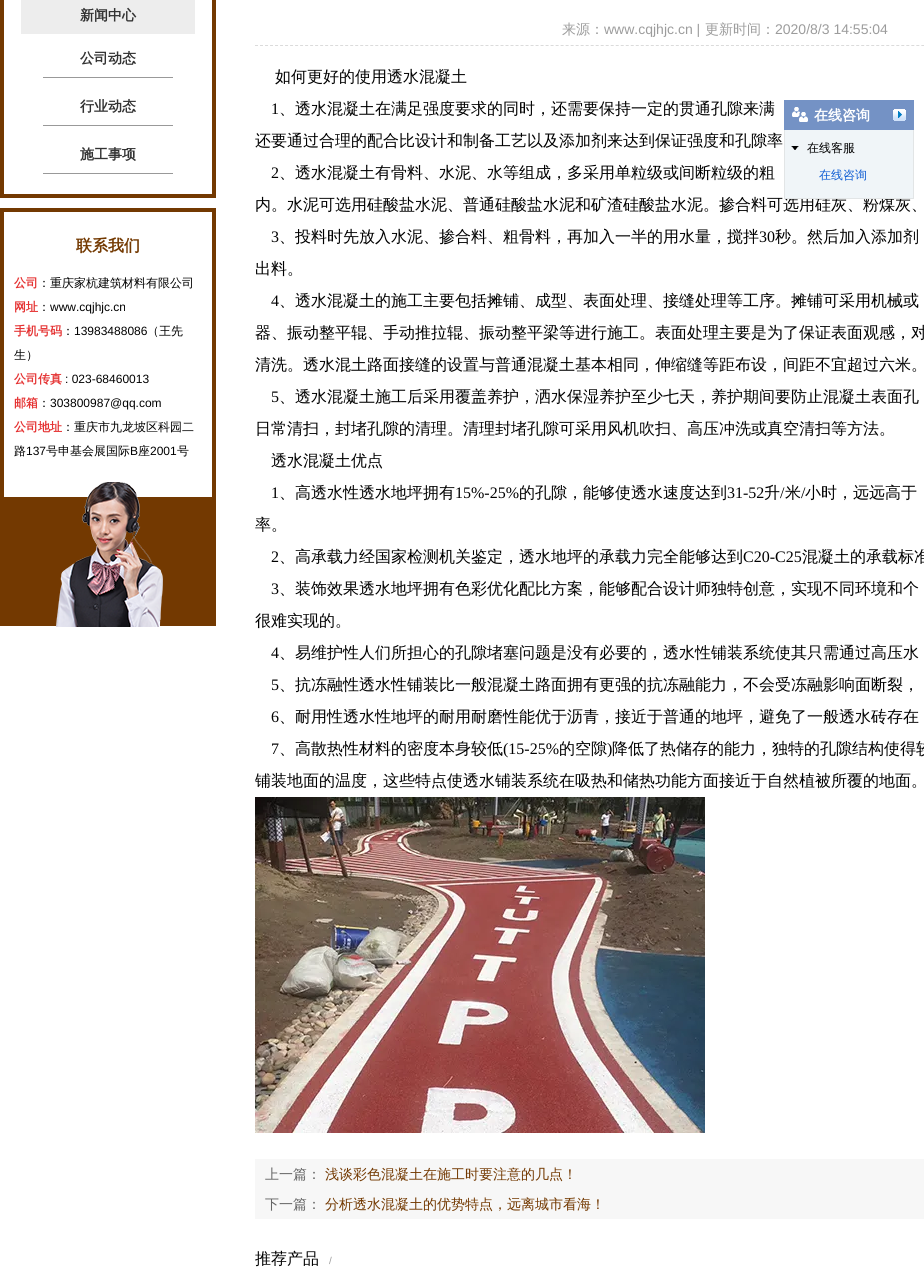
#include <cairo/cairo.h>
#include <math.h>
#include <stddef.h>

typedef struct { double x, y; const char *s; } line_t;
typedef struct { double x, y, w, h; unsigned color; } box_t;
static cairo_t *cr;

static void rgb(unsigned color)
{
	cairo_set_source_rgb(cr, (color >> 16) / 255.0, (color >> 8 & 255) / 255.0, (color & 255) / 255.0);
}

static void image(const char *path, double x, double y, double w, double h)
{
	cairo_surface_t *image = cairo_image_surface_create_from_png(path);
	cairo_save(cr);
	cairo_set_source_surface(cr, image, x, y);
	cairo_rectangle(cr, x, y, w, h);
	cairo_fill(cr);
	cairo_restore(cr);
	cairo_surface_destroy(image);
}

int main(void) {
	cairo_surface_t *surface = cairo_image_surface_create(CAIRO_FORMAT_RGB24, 924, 1270);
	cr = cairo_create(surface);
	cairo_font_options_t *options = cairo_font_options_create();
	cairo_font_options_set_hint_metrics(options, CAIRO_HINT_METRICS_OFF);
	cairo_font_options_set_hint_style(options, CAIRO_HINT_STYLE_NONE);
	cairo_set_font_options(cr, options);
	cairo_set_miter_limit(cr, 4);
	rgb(0xffffff);
	cairo_paint(cr);
	cairo_rectangle(cr, 2, -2, 212, 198);
	rgb(0x733901);
	cairo_set_line_width(cr, 4);
	cairo_stroke(cr);
	{
		static const box_t items[] = {
			{21, 0, 174, 34, 0xededed},
			{43, 77, 130, 1, 0x999999},
			{43, 125, 130, 1, 0x999999},
			{43, 173, 130, 1, 0x999999},
			{0, 208, 216, 418, 0x733901},
			{4, 212, 208, 285, 0xffffff},
		};
		for (size_t i = 0; i < sizeof items / sizeof *items; i++) {
			rgb(items[i].color);
			cairo_rectangle(cr, items[i].x, items[i].y, items[i].w, items[i].h);
			cairo_fill(cr);
		}
	}
	image("img/1.png", 56, 482, 107, 145);
	cairo_new_path(cr);
	cairo_move_to(cr, 255, 45.5);
	cairo_line_to(cr, 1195, 45.5);
	rgb(0xdbdbdb);
	cairo_set_line_width(cr, 1);
	cairo_set_dash(cr, (double[]){3, 2.01}, 2, 0);
	cairo_stroke(cr);
	image("img/2.png", 255, 797, 450, 336);
	rgb(0xf7f7f7);
	cairo_rectangle(cr, 255, 1159, 669, 60);
	cairo_fill(cr);
	rgb(0x7492c5);
	cairo_rectangle(cr, 784, 100, 130, 30);
	cairo_fill(cr);
	image("img/3.png", 792, 107, 16, 15);
	image("img/4.png", 893, 109, 13, 12);
	cairo_select_font_face(cr, "WenQuanYi Zen Hei", CAIRO_FONT_SLANT_NORMAL, CAIRO_FONT_WEIGHT_BOLD);
	cairo_set_font_size(cr, 14);
	rgb(0x333333);
	{
		static const line_t items[] = {
			{80, 20, "新闻中心"},
			{80, 63, "公司动态"},
			{80, 111, "行业动态"},
			{80, 159, "施工事项"},
		};
		for (size_t i = 0; i < sizeof items / sizeof *items; i++) {
			cairo_move_to(cr, items[i].x, items[i].y);
			cairo_show_text(cr, items[i].s);
		}
	}
	cairo_set_font_size(cr, 16);
	rgb(0x733901);
	cairo_move_to(cr, 76, 251);
	cairo_show_text(cr, "联系我们");
	cairo_set_font_size(cr, 12);
	rgb(0xe53333);
	cairo_move_to(cr, 14, 287);
	cairo_show_text(cr, "公司");
	cairo_select_font_face(cr, "WenQuanYi Zen Hei Medium", CAIRO_FONT_SLANT_NORMAL, CAIRO_FONT_WEIGHT_NORMAL);
	rgb(0x000000);
	cairo_move_to(cr, 38, 287);
	cairo_show_text(cr, "：重庆家杭建筑材料有限公司");
	cairo_select_font_face(cr, "WenQuanYi Zen Hei", CAIRO_FONT_SLANT_NORMAL, CAIRO_FONT_WEIGHT_BOLD);
	rgb(0xe53333);
	cairo_move_to(cr, 14, 311);
	cairo_show_text(cr, "网址");
	cairo_select_font_face(cr, "WenQuanYi Zen Hei Medium", CAIRO_FONT_SLANT_NORMAL, CAIRO_FONT_WEIGHT_NORMAL);
	rgb(0x000000);
	cairo_move_to(cr, 38, 311);
	cairo_show_text(cr, "：");
	cairo_select_font_face(cr, "Liberation Sans", CAIRO_FONT_SLANT_NORMAL, CAIRO_FONT_WEIGHT_NORMAL);
	cairo_move_to(cr, 50, 311);
	cairo_show_text(cr, "www.cqjhjc.cn");
	cairo_select_font_face(cr, "WenQuanYi Zen Hei", CAIRO_FONT_SLANT_NORMAL, CAIRO_FONT_WEIGHT_BOLD);
	rgb(0xe53333);
	cairo_move_to(cr, 14, 335);
	cairo_show_text(cr, "手机号码");
	cairo_select_font_face(cr, "WenQuanYi Zen Hei Medium", CAIRO_FONT_SLANT_NORMAL, CAIRO_FONT_WEIGHT_NORMAL);
	rgb(0x000000);
	cairo_move_to(cr, 62, 335);
	cairo_show_text(cr, "：");
	cairo_select_font_face(cr, "Liberation Sans", CAIRO_FONT_SLANT_NORMAL, CAIRO_FONT_WEIGHT_NORMAL);
	cairo_move_to(cr, 74, 335);
	cairo_show_text(cr, "13983488086");
	cairo_select_font_face(cr, "WenQuanYi Zen Hei Medium", CAIRO_FONT_SLANT_NORMAL, CAIRO_FONT_WEIGHT_NORMAL);
	cairo_move_to(cr, 147, 335);
	cairo_show_text(cr, "（王先");
	cairo_move_to(cr, 14, 359);
	cairo_show_text(cr, "生）");
	cairo_select_font_face(cr, "WenQuanYi Zen Hei", CAIRO_FONT_SLANT_NORMAL, CAIRO_FONT_WEIGHT_BOLD);
	rgb(0xe53333);
	cairo_move_to(cr, 14, 383);
	cairo_show_text(cr, "公司传真");
	cairo_select_font_face(cr, "Liberation Sans", CAIRO_FONT_SLANT_NORMAL, CAIRO_FONT_WEIGHT_NORMAL);
	rgb(0x000000);
	cairo_move_to(cr, 65, 383);
	cairo_show_text(cr, ": 023-68460013");
	cairo_select_font_face(cr, "WenQuanYi Zen Hei", CAIRO_FONT_SLANT_NORMAL, CAIRO_FONT_WEIGHT_BOLD);
	rgb(0xe53333);
	cairo_move_to(cr, 14, 407);
	cairo_show_text(cr, "邮箱");
	cairo_select_font_face(cr, "WenQuanYi Zen Hei Medium", CAIRO_FONT_SLANT_NORMAL, CAIRO_FONT_WEIGHT_NORMAL);
	rgb(0x000000);
	cairo_move_to(cr, 38, 407);
	cairo_show_text(cr, "：");
	cairo_select_font_face(cr, "Liberation Sans", CAIRO_FONT_SLANT_NORMAL, CAIRO_FONT_WEIGHT_NORMAL);
	cairo_move_to(cr, 50, 407);
	cairo_show_text(cr, "303800987@qq.com");
	cairo_select_font_face(cr, "WenQuanYi Zen Hei", CAIRO_FONT_SLANT_NORMAL, CAIRO_FONT_WEIGHT_BOLD);
	rgb(0xe53333);
	cairo_move_to(cr, 14, 431);
	cairo_show_text(cr, "公司地址");
	cairo_select_font_face(cr, "WenQuanYi Zen Hei Medium", CAIRO_FONT_SLANT_NORMAL, CAIRO_FONT_WEIGHT_NORMAL);
	rgb(0x000000);
	cairo_move_to(cr, 62, 431);
	cairo_show_text(cr, "：重庆市九龙坡区科园二");
	cairo_move_to(cr, 14, 455);
	cairo_show_text(cr, "路");
	cairo_select_font_face(cr, "Liberation Sans", CAIRO_FONT_SLANT_NORMAL, CAIRO_FONT_WEIGHT_NORMAL);
	cairo_move_to(cr, 26, 455);
	cairo_show_text(cr, "137");
	cairo_select_font_face(cr, "WenQuanYi Zen Hei Medium", CAIRO_FONT_SLANT_NORMAL, CAIRO_FONT_WEIGHT_NORMAL);
	cairo_move_to(cr, 46, 455);
	cairo_show_text(cr, "号申基会展国际");
	cairo_select_font_face(cr, "Liberation Sans", CAIRO_FONT_SLANT_NORMAL, CAIRO_FONT_WEIGHT_NORMAL);
	cairo_move_to(cr, 130, 455);
	cairo_show_text(cr, "B");
	cairo_select_font_face(cr, "WenQuanYi Zen Hei Medium", CAIRO_FONT_SLANT_NORMAL, CAIRO_FONT_WEIGHT_NORMAL);
	cairo_move_to(cr, 138, 455);
	cairo_show_text(cr, "座");
	cairo_select_font_face(cr, "Liberation Sans", CAIRO_FONT_SLANT_NORMAL, CAIRO_FONT_WEIGHT_NORMAL);
	cairo_move_to(cr, 150, 455);
	cairo_show_text(cr, "2001");
	cairo_select_font_face(cr, "WenQuanYi Zen Hei Medium", CAIRO_FONT_SLANT_NORMAL, CAIRO_FONT_WEIGHT_NORMAL);
	cairo_move_to(cr, 177, 455);
	cairo_show_text(cr, "号");
	cairo_set_font_size(cr, 14);
	rgb(0x9c9c9c);
	cairo_move_to(cr, 562, 34);
	cairo_show_text(cr, "来源：");
	cairo_select_font_face(cr, "Liberation Sans", CAIRO_FONT_SLANT_NORMAL, CAIRO_FONT_WEIGHT_NORMAL);
	cairo_move_to(cr, 604, 34);
	cairo_show_text(cr, "www.cqjhjc.cn |");
	cairo_select_font_face(cr, "WenQuanYi Zen Hei Medium", CAIRO_FONT_SLANT_NORMAL, CAIRO_FONT_WEIGHT_NORMAL);
	cairo_move_to(cr, 705, 34);
	cairo_show_text(cr, "更新时间：");
	cairo_select_font_face(cr, "Liberation Sans", CAIRO_FONT_SLANT_NORMAL, CAIRO_FONT_WEIGHT_NORMAL);
	cairo_move_to(cr, 775, 34);
	cairo_show_text(cr, "2020/8/3 14:55:04");
	cairo_select_font_face(cr, "WenQuanYi Zen Hei Medium", CAIRO_FONT_SLANT_NORMAL, CAIRO_FONT_WEIGHT_NORMAL);
	cairo_set_font_size(cr, 16);
	rgb(0x000000);
	cairo_move_to(cr, 275, 82);
	cairo_show_text(cr, "如何更好的使用透水混凝土");
	cairo_select_font_face(cr, "Liberation Serif", CAIRO_FONT_SLANT_NORMAL, CAIRO_FONT_WEIGHT_NORMAL);
	cairo_move_to(cr, 271, 114);
	cairo_show_text(cr, "1");
	cairo_select_font_face(cr, "WenQuanYi Zen Hei Medium", CAIRO_FONT_SLANT_NORMAL, CAIRO_FONT_WEIGHT_NORMAL);
	cairo_move_to(cr, 279, 114);
	cairo_show_text(cr, "、透水混凝土在满足强度要求的同时，还需要保持一定的贯通孔隙来满");
	cairo_move_to(cr, 255, 146);
	cairo_show_text(cr, "还要通过合理的配合比设计和制备工艺以及添加剂来达到保证强度和孔隙率");
	cairo_select_font_face(cr, "Liberation Serif", CAIRO_FONT_SLANT_NORMAL, CAIRO_FONT_WEIGHT_NORMAL);
	cairo_move_to(cr, 271, 178);
	cairo_show_text(cr, "2");
	cairo_select_font_face(cr, "WenQuanYi Zen Hei Medium", CAIRO_FONT_SLANT_NORMAL, CAIRO_FONT_WEIGHT_NORMAL);
	cairo_move_to(cr, 279, 178);
	cairo_show_text(cr, "、透水混凝土有骨料、水泥、水等组成，多采用单粒级或间断粒级的粗");
	cairo_move_to(cr, 255, 210);
	cairo_show_text(cr, "内。水泥可选用硅酸盐水泥、普通硅酸盐水泥和矿渣硅酸盐水泥。掺合料可选用硅灰、粉煤灰、");
	cairo_select_font_face(cr, "Liberation Serif", CAIRO_FONT_SLANT_NORMAL, CAIRO_FONT_WEIGHT_NORMAL);
	cairo_move_to(cr, 271, 242);
	cairo_show_text(cr, "3");
	cairo_select_font_face(cr, "WenQuanYi Zen Hei Medium", CAIRO_FONT_SLANT_NORMAL, CAIRO_FONT_WEIGHT_NORMAL);
	cairo_move_to(cr, 279, 242);
	cairo_show_text(cr, "、投料时先放入水泥、掺合料、粗骨料，再加入一半的用水量，搅拌");
	cairo_select_font_face(cr, "Liberation Serif", CAIRO_FONT_SLANT_NORMAL, CAIRO_FONT_WEIGHT_NORMAL);
	cairo_move_to(cr, 759, 242);
	cairo_show_text(cr, "30");
	cairo_select_font_face(cr, "WenQuanYi Zen Hei Medium", CAIRO_FONT_SLANT_NORMAL, CAIRO_FONT_WEIGHT_NORMAL);
	cairo_move_to(cr, 775, 242);
	cairo_show_text(cr, "秒。然后加入添加剂");
	cairo_move_to(cr, 255, 274);
	cairo_show_text(cr, "出料。");
	cairo_select_font_face(cr, "Liberation Serif", CAIRO_FONT_SLANT_NORMAL, CAIRO_FONT_WEIGHT_NORMAL);
	cairo_move_to(cr, 271, 306);
	cairo_show_text(cr, "4");
	cairo_select_font_face(cr, "WenQuanYi Zen Hei Medium", CAIRO_FONT_SLANT_NORMAL, CAIRO_FONT_WEIGHT_NORMAL);
	{
		static const line_t items[] = {
			{279, 306, "、透水混凝土的施工主要包括摊铺、成型、表面处理、接缝处理等工序。摊铺可采用机械或"},
			{255, 338, "器、振动整平辊、手动推拉辊、振动整平梁等进行施工。表面处理主要是为了保证表面观感，对"},
			{255, 370, "清洗。透水混土路面接缝的设置与普通混凝土基本相同，伸缩缝等距布设，间距不宜超过六米。"},
		};
		for (size_t i = 0; i < sizeof items / sizeof *items; i++) {
			cairo_move_to(cr, items[i].x, items[i].y);
			cairo_show_text(cr, items[i].s);
		}
	}
	cairo_select_font_face(cr, "Liberation Serif", CAIRO_FONT_SLANT_NORMAL, CAIRO_FONT_WEIGHT_NORMAL);
	cairo_move_to(cr, 271, 402);
	cairo_show_text(cr, "5");
	cairo_select_font_face(cr, "WenQuanYi Zen Hei Medium", CAIRO_FONT_SLANT_NORMAL, CAIRO_FONT_WEIGHT_NORMAL);
	{
		static const line_t items[] = {
			{279, 402, "、透水混凝土施工后采用覆盖养护，洒水保湿养护至少七天，养护期间要防止混凝土表面孔"},
			{255, 434, "日常清扫，封堵孔隙的清理。清理封堵孔隙可采用风机吹扫、高压冲洗或真空清扫等方法。"},
			{271, 466, "透水混凝土优点"},
		};
		for (size_t i = 0; i < sizeof items / sizeof *items; i++) {
			cairo_move_to(cr, items[i].x, items[i].y);
			cairo_show_text(cr, items[i].s);
		}
	}
	cairo_select_font_face(cr, "Liberation Serif", CAIRO_FONT_SLANT_NORMAL, CAIRO_FONT_WEIGHT_NORMAL);
	cairo_move_to(cr, 271, 498);
	cairo_show_text(cr, "1");
	cairo_select_font_face(cr, "WenQuanYi Zen Hei Medium", CAIRO_FONT_SLANT_NORMAL, CAIRO_FONT_WEIGHT_NORMAL);
	cairo_move_to(cr, 279, 498);
	cairo_show_text(cr, "、高透水性透水地坪拥有");
	cairo_select_font_face(cr, "Liberation Serif", CAIRO_FONT_SLANT_NORMAL, CAIRO_FONT_WEIGHT_NORMAL);
	cairo_move_to(cr, 455, 498);
	cairo_show_text(cr, "15%-25%");
	cairo_select_font_face(cr, "WenQuanYi Zen Hei Medium", CAIRO_FONT_SLANT_NORMAL, CAIRO_FONT_WEIGHT_NORMAL);
	cairo_move_to(cr, 519, 498);
	cairo_show_text(cr, "的孔隙，能够使透水速度达到");
	cairo_select_font_face(cr, "Liberation Serif", CAIRO_FONT_SLANT_NORMAL, CAIRO_FONT_WEIGHT_NORMAL);
	cairo_move_to(cr, 727, 498);
	cairo_show_text(cr, "31-52");
	cairo_select_font_face(cr, "WenQuanYi Zen Hei Medium", CAIRO_FONT_SLANT_NORMAL, CAIRO_FONT_WEIGHT_NORMAL);
	cairo_move_to(cr, 764, 498);
	cairo_show_text(cr, "升");
	cairo_select_font_face(cr, "Liberation Serif", CAIRO_FONT_SLANT_NORMAL, CAIRO_FONT_WEIGHT_NORMAL);
	cairo_move_to(cr, 780, 498);
	cairo_show_text(cr, "/");
	cairo_select_font_face(cr, "WenQuanYi Zen Hei Medium", CAIRO_FONT_SLANT_NORMAL, CAIRO_FONT_WEIGHT_NORMAL);
	cairo_move_to(cr, 785, 498);
	cairo_show_text(cr, "米");
	cairo_select_font_face(cr, "Liberation Serif", CAIRO_FONT_SLANT_NORMAL, CAIRO_FONT_WEIGHT_NORMAL);
	cairo_move_to(cr, 801, 498);
	cairo_show_text(cr, "/");
	cairo_select_font_face(cr, "WenQuanYi Zen Hei Medium", CAIRO_FONT_SLANT_NORMAL, CAIRO_FONT_WEIGHT_NORMAL);
	cairo_move_to(cr, 805, 498);
	cairo_show_text(cr, "小时，远远高于");
	cairo_move_to(cr, 255, 530);
	cairo_show_text(cr, "率。");
	cairo_select_font_face(cr, "Liberation Serif", CAIRO_FONT_SLANT_NORMAL, CAIRO_FONT_WEIGHT_NORMAL);
	cairo_move_to(cr, 271, 562);
	cairo_show_text(cr, "2");
	cairo_select_font_face(cr, "WenQuanYi Zen Hei Medium", CAIRO_FONT_SLANT_NORMAL, CAIRO_FONT_WEIGHT_NORMAL);
	cairo_move_to(cr, 279, 562);
	cairo_show_text(cr, "、高承载力经国家检测机关鉴定，透水地坪的承载力完全能够达到");
	cairo_select_font_face(cr, "Liberation Serif", CAIRO_FONT_SLANT_NORMAL, CAIRO_FONT_WEIGHT_NORMAL);
	cairo_move_to(cr, 743, 562);
	cairo_show_text(cr, "C20-C25");
	cairo_select_font_face(cr, "WenQuanYi Zen Hei Medium", CAIRO_FONT_SLANT_NORMAL, CAIRO_FONT_WEIGHT_NORMAL);
	cairo_move_to(cr, 802, 562);
	cairo_show_text(cr, "混凝土的承载标准");
	cairo_select_font_face(cr, "Liberation Serif", CAIRO_FONT_SLANT_NORMAL, CAIRO_FONT_WEIGHT_NORMAL);
	cairo_move_to(cr, 271, 594);
	cairo_show_text(cr, "3");
	cairo_select_font_face(cr, "WenQuanYi Zen Hei Medium", CAIRO_FONT_SLANT_NORMAL, CAIRO_FONT_WEIGHT_NORMAL);
	cairo_move_to(cr, 279, 594);
	cairo_show_text(cr, "、装饰效果透水地坪拥有色彩优化配比方案，能够配合设计师独特创意，实现不同环境和个");
	cairo_move_to(cr, 255, 626);
	cairo_show_text(cr, "很难实现的。");
	cairo_select_font_face(cr, "Liberation Serif", CAIRO_FONT_SLANT_NORMAL, CAIRO_FONT_WEIGHT_NORMAL);
	cairo_move_to(cr, 271, 658);
	cairo_show_text(cr, "4");
	cairo_select_font_face(cr, "WenQuanYi Zen Hei Medium", CAIRO_FONT_SLANT_NORMAL, CAIRO_FONT_WEIGHT_NORMAL);
	cairo_move_to(cr, 279, 658);
	cairo_show_text(cr, "、易维护性人们所担心的孔隙堵塞问题是没有必要的，透水性铺装系统使其只需通过高压水");
	cairo_select_font_face(cr, "Liberation Serif", CAIRO_FONT_SLANT_NORMAL, CAIRO_FONT_WEIGHT_NORMAL);
	cairo_move_to(cr, 271, 690);
	cairo_show_text(cr, "5");
	cairo_select_font_face(cr, "WenQuanYi Zen Hei Medium", CAIRO_FONT_SLANT_NORMAL, CAIRO_FONT_WEIGHT_NORMAL);
	cairo_move_to(cr, 279, 690);
	cairo_show_text(cr, "、抗冻融性透水性铺装比一般混凝土路面拥有更强的抗冻融能力，不会受冻融影响面断裂，");
	cairo_select_font_face(cr, "Liberation Serif", CAIRO_FONT_SLANT_NORMAL, CAIRO_FONT_WEIGHT_NORMAL);
	cairo_move_to(cr, 271, 722);
	cairo_show_text(cr, "6");
	cairo_select_font_face(cr, "WenQuanYi Zen Hei Medium", CAIRO_FONT_SLANT_NORMAL, CAIRO_FONT_WEIGHT_NORMAL);
	cairo_move_to(cr, 279, 722);
	cairo_show_text(cr, "、耐用性透水性地坪的耐用耐磨性能优于沥青，接近于普通的地坪，避免了一般透水砖存在");
	cairo_select_font_face(cr, "Liberation Serif", CAIRO_FONT_SLANT_NORMAL, CAIRO_FONT_WEIGHT_NORMAL);
	cairo_move_to(cr, 271, 754);
	cairo_show_text(cr, "7");
	cairo_select_font_face(cr, "WenQuanYi Zen Hei Medium", CAIRO_FONT_SLANT_NORMAL, CAIRO_FONT_WEIGHT_NORMAL);
	cairo_move_to(cr, 279, 754);
	cairo_show_text(cr, "、高散热性材料的密度本身较低");
	cairo_select_font_face(cr, "Liberation Serif", CAIRO_FONT_SLANT_NORMAL, CAIRO_FONT_WEIGHT_NORMAL);
	cairo_move_to(cr, 503, 754);
	cairo_show_text(cr, "(15-25%");
	cairo_select_font_face(cr, "WenQuanYi Zen Hei Medium", CAIRO_FONT_SLANT_NORMAL, CAIRO_FONT_WEIGHT_NORMAL);
	cairo_move_to(cr, 559, 754);
	cairo_show_text(cr, "的空隙");
	cairo_select_font_face(cr, "Liberation Serif", CAIRO_FONT_SLANT_NORMAL, CAIRO_FONT_WEIGHT_NORMAL);
	cairo_move_to(cr, 607, 754);
	cairo_show_text(cr, ")");
	cairo_select_font_face(cr, "WenQuanYi Zen Hei Medium", CAIRO_FONT_SLANT_NORMAL, CAIRO_FONT_WEIGHT_NORMAL);
	cairo_move_to(cr, 612, 754);
	cairo_show_text(cr, "降低了热储存的能力，独特的孔隙结构使得较");
	cairo_move_to(cr, 255, 786);
	cairo_show_text(cr, "铺装地面的温度，这些特点使透水铺装系统在吸热和储热功能方面接近于自然植被所覆的地面。");
	cairo_set_font_size(cr, 14);
	rgb(0x666666);
	cairo_move_to(cr, 265, 1179);
	cairo_show_text(cr, "上一篇：");
	rgb(0x733901);
	cairo_move_to(cr, 325, 1179);
	cairo_show_text(cr, "浅谈彩色混凝土在施工时要注意的几点！");
	rgb(0x666666);
	cairo_move_to(cr, 265, 1209);
	cairo_show_text(cr, "下一篇：");
	rgb(0x733901);
	cairo_move_to(cr, 325, 1209);
	cairo_show_text(cr, "分析透水混凝土的优势特点，远离城市看海！");
	cairo_set_font_size(cr, 16);
	rgb(0x000000);
	cairo_move_to(cr, 255, 1264);
	cairo_show_text(cr, "推荐产品");
	cairo_select_font_face(cr, "Liberation Sans", CAIRO_FONT_SLANT_NORMAL, CAIRO_FONT_WEIGHT_NORMAL);
	cairo_set_font_size(cr, 10);
	rgb(0x9c9c9c);
	cairo_move_to(cr, 329, 1264);
	cairo_show_text(cr, "/");
	cairo_select_font_face(cr, "WenQuanYi Zen Hei", CAIRO_FONT_SLANT_NORMAL, CAIRO_FONT_WEIGHT_BOLD);
	cairo_set_font_size(cr, 14);
	rgb(0xffffff);
	cairo_move_to(cr, 814, 120);
	cairo_show_text(cr, "在线咨询");
	{
		static const box_t items[] = {
			{785, 130, 128, 68, 0xf0f5f8},
			{913, 130, 1, 69, 0xe2e5e6},
			{784, 198, 130, 1, 0xe2e5e6},
			{784, 130, 1, 69, 0xe2e5e6},
		};
		for (size_t i = 0; i < sizeof items / sizeof *items; i++) {
			rgb(items[i].color);
			cairo_rectangle(cr, items[i].x, items[i].y, items[i].w, items[i].h);
			cairo_fill(cr);
		}
	}
	image("img/5.png", 791, 146, 8, 4);
	cairo_select_font_face(cr, "WenQuanYi Zen Hei Medium", CAIRO_FONT_SLANT_NORMAL, CAIRO_FONT_WEIGHT_NORMAL);
	cairo_set_font_size(cr, 12);
	rgb(0x000000);
	cairo_move_to(cr, 807, 152);
	cairo_show_text(cr, "在线客服");
	rgb(0x0f5dd3);
	cairo_move_to(cr, 819, 179);
	cairo_show_text(cr, "在线咨询");
	cairo_surface_write_to_png(surface, "page.png");
	cairo_font_options_destroy(options);
	cairo_destroy(cr);
	cairo_surface_destroy(surface);
	return 0;
}
